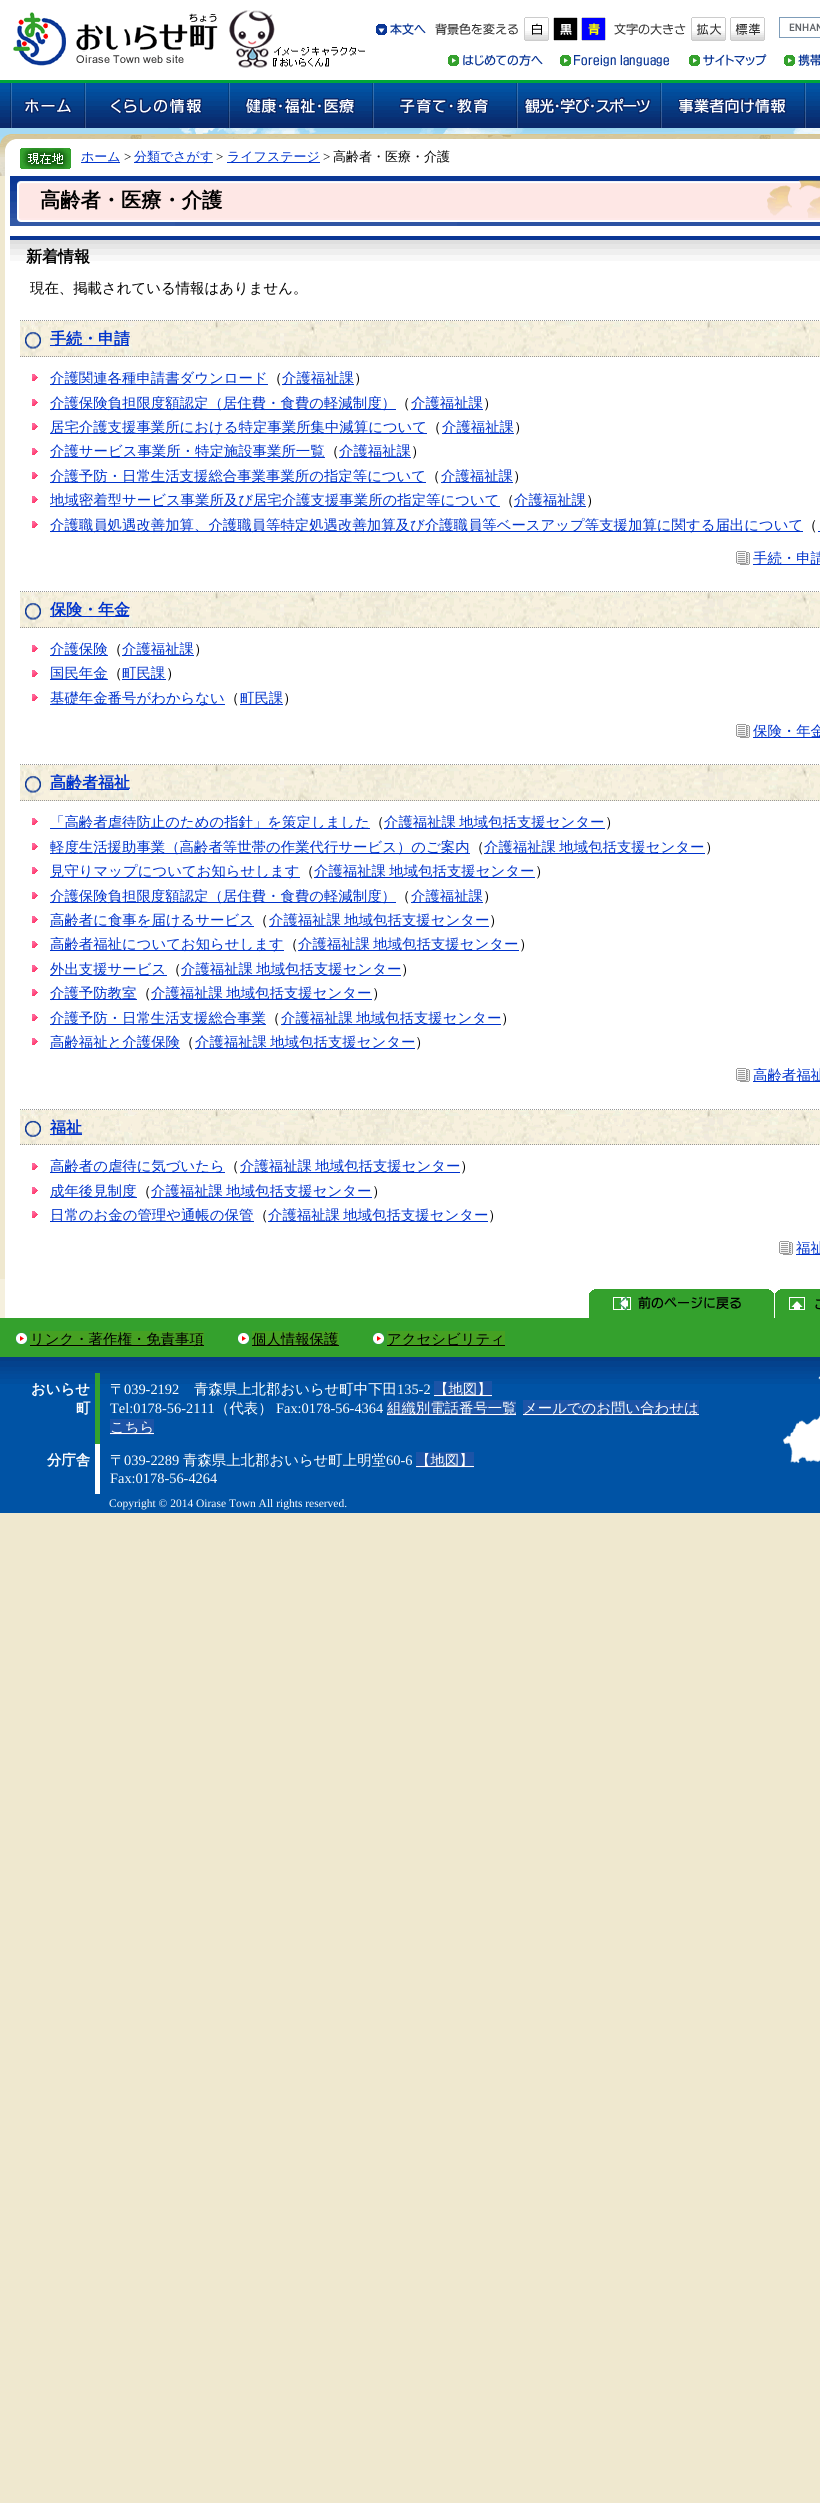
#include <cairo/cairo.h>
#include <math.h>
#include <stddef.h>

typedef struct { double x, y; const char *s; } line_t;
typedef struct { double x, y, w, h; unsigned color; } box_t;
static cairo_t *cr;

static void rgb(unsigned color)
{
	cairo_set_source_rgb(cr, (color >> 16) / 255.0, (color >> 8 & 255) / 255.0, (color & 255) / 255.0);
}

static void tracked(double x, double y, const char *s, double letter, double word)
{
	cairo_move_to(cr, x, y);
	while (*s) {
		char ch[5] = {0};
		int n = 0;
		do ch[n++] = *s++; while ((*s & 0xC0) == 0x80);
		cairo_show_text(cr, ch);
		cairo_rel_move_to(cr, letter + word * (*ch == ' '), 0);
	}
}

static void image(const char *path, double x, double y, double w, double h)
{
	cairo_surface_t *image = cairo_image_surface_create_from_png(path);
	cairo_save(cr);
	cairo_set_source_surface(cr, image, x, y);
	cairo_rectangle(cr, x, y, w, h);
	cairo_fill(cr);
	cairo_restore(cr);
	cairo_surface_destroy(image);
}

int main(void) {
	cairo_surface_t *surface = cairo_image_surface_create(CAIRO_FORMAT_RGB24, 820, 2503);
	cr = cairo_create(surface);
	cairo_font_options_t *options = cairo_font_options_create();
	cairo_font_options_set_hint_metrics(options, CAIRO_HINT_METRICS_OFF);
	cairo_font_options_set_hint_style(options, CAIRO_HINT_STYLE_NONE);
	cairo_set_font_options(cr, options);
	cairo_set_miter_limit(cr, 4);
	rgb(0xefe8cf);
	cairo_paint(cr);
	rgb(0xffffff);
	cairo_rectangle(cr, 0, 0, 820, 80);
	cairo_fill(cr);
	image("img/1.png", 13, 12, 205, 54);
	image("img/2.png", 229, 10, 136, 58);
	image("img/3.png", 376, 23, 50, 12);
	image("img/4.png", 435, 23, 83, 12);
	image("img/5.png", 524, 17, 25, 24);
	image("img/6.png", 553, 17, 25, 24);
	image("img/7.png", 581, 17, 25, 24);
	image("img/8.png", 614, 23, 72, 12);
	image("img/9.png", 691, 17, 35, 24);
	image("img/10.png", 730, 17, 35, 24);
	image("img/11.png", 789, 23, 31, 8);
	cairo_rectangle(cr, 779.5, 17.5, 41, 20);
	rgb(0x7f9db9);
	cairo_set_line_width(cr, 1);
	cairo_stroke(cr);
	image("img/12.png", 448, 54, 95, 12);
	image("img/13.png", 560, 55, 109, 12);
	image("img/14.png", 689, 54, 78, 12);
	image("img/15.png", 784, 54, 36, 12);
	image("img/16.png", 0, 83, 820, 45);
	rgb(0x00a63c);
	cairo_rectangle(cr, 0, 80, 820, 3);
	cairo_fill(cr);
	image("img/17.png", 10, 83, 76, 45);
	image("img/18.png", 110, 83, 120, 45);
	image("img/19.png", 230, 83, 144, 45);
	image("img/20.png", 399, 83, 119, 45);
	image("img/21.png", 518, 83, 144, 45);
	image("img/22.png", 678, 83, 128, 45);
	image("img/23.png", 0, 128, 820, 48);
	image("img/24.png", 20, 148, 51, 21);
	{
		static const box_t items[] = {
			{81, 162, 39, 1, 0x0033cc},
			{134, 162, 79, 1, 0x0033cc},
			{227, 162, 93, 1, 0x0033cc},
			{5, 176, 815, 1103, 0xffffff},
		};
		for (size_t i = 0; i < sizeof items / sizeof *items; i++) {
			rgb(items[i].color);
			cairo_rectangle(cr, items[i].x, items[i].y, items[i].w, items[i].h);
			cairo_fill(cr);
		}
	}
	image("img/25.png", 10, 176, 810, 42);
	image("img/26.png", 10, 218, 810, 8);
	image("img/27.png", 10, 236, 810, 25);
	image("img/28.png", 20, 321, 800, 36);
	cairo_new_path(cr);
	cairo_move_to(cr, 20, 320.5);
	cairo_line_to(cr, 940, 320.5);
	rgb(0x999999);
	cairo_set_dash(cr, (double[]){1, 1}, 2, 0);
	cairo_stroke(cr);
	cairo_new_path(cr);
	cairo_move_to(cr, 20, 356.5);
	cairo_line_to(cr, 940, 356.5);
	cairo_stroke(cr);
	rgb(0x0033cc);
	cairo_rectangle(cr, 50, 345, 79, 1);
	cairo_fill(cr);
	image("img/29.png", 32, 374, 6, 7);
	cairo_rectangle(cr, 50, 384, 218, 1);
	cairo_fill(cr);
	cairo_rectangle(cr, 282, 384, 72, 1);
	cairo_fill(cr);
	image("img/29.png", 32, 399, 6, 7);
	cairo_rectangle(cr, 50, 409, 346, 1);
	cairo_fill(cr);
	cairo_rectangle(cr, 411, 409, 72, 1);
	cairo_fill(cr);
	image("img/29.png", 32, 423, 6, 7);
	cairo_rectangle(cr, 50, 433, 377, 1);
	cairo_fill(cr);
	cairo_rectangle(cr, 442, 433, 72, 1);
	cairo_fill(cr);
	image("img/29.png", 32, 448, 6, 7);
	cairo_rectangle(cr, 50, 457, 275, 1);
	cairo_fill(cr);
	cairo_rectangle(cr, 339, 457, 72, 1);
	cairo_fill(cr);
	image("img/29.png", 32, 472, 6, 7);
	cairo_rectangle(cr, 50, 482, 376, 1);
	cairo_fill(cr);
	cairo_rectangle(cr, 441, 482, 72, 1);
	cairo_fill(cr);
	image("img/29.png", 32, 496, 6, 7);
	cairo_rectangle(cr, 50, 506, 450, 1);
	cairo_fill(cr);
	cairo_rectangle(cr, 514, 506, 72, 1);
	cairo_fill(cr);
	image("img/29.png", 32, 521, 6, 7);
	cairo_rectangle(cr, 50, 531, 753, 1);
	cairo_fill(cr);
	cairo_rectangle(cr, 818, 531, 2, 1);
	cairo_fill(cr);
	image("img/30.png", 736, 551, 14, 14);
	cairo_rectangle(cr, 753, 564, 67, 1);
	cairo_fill(cr);
	image("img/28.png", 20, 592, 800, 36);
	cairo_new_path(cr);
	cairo_move_to(cr, 20, 591.5);
	cairo_line_to(cr, 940, 591.5);
	rgb(0x999999);
	cairo_stroke(cr);
	cairo_new_path(cr);
	cairo_move_to(cr, 20, 627.5);
	cairo_line_to(cr, 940, 627.5);
	cairo_stroke(cr);
	rgb(0x0033cc);
	cairo_rectangle(cr, 50, 616, 79, 1);
	cairo_fill(cr);
	image("img/29.png", 32, 645, 6, 7);
	cairo_rectangle(cr, 50, 655, 58, 1);
	cairo_fill(cr);
	cairo_rectangle(cr, 122, 655, 72, 1);
	cairo_fill(cr);
	image("img/29.png", 32, 670, 6, 7);
	cairo_rectangle(cr, 50, 679, 58, 1);
	cairo_fill(cr);
	cairo_rectangle(cr, 122, 679, 44, 1);
	cairo_fill(cr);
	image("img/29.png", 32, 694, 6, 7);
	cairo_rectangle(cr, 50, 704, 175, 1);
	cairo_fill(cr);
	cairo_rectangle(cr, 240, 704, 43, 1);
	cairo_fill(cr);
	image("img/30.png", 736, 724, 14, 14);
	cairo_rectangle(cr, 753, 737, 67, 1);
	cairo_fill(cr);
	image("img/28.png", 20, 765, 800, 36);
	cairo_new_path(cr);
	cairo_move_to(cr, 20, 764.5);
	cairo_line_to(cr, 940, 764.5);
	rgb(0x999999);
	cairo_stroke(cr);
	cairo_new_path(cr);
	cairo_move_to(cr, 20, 800.5);
	cairo_line_to(cr, 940, 800.5);
	cairo_stroke(cr);
	rgb(0x0033cc);
	cairo_rectangle(cr, 50, 789, 79, 1);
	cairo_fill(cr);
	image("img/29.png", 32, 818, 6, 7);
	cairo_rectangle(cr, 50, 828, 320, 1);
	cairo_fill(cr);
	cairo_rectangle(cr, 384, 828, 221, 1);
	cairo_fill(cr);
	image("img/29.png", 32, 843, 6, 7);
	cairo_rectangle(cr, 50, 853, 420, 1);
	cairo_fill(cr);
	cairo_rectangle(cr, 484, 853, 221, 1);
	cairo_fill(cr);
	image("img/29.png", 32, 867, 6, 7);
	cairo_rectangle(cr, 50, 877, 250, 1);
	cairo_fill(cr);
	cairo_rectangle(cr, 314, 877, 221, 1);
	cairo_fill(cr);
	image("img/29.png", 32, 892, 6, 7);
	cairo_rectangle(cr, 50, 902, 346, 1);
	cairo_fill(cr);
	cairo_rectangle(cr, 411, 902, 72, 1);
	cairo_fill(cr);
	image("img/29.png", 32, 916, 6, 7);
	cairo_rectangle(cr, 50, 926, 204, 1);
	cairo_fill(cr);
	cairo_rectangle(cr, 269, 926, 220, 1);
	cairo_fill(cr);
	image("img/29.png", 32, 941, 6, 7);
	cairo_rectangle(cr, 50, 950, 234, 1);
	cairo_fill(cr);
	cairo_rectangle(cr, 298, 950, 221, 1);
	cairo_fill(cr);
	image("img/29.png", 32, 965, 6, 7);
	cairo_rectangle(cr, 50, 975, 117, 1);
	cairo_fill(cr);
	cairo_rectangle(cr, 181, 975, 220, 1);
	cairo_fill(cr);
	image("img/29.png", 32, 989, 6, 7);
	cairo_rectangle(cr, 50, 999, 87, 1);
	cairo_fill(cr);
	cairo_rectangle(cr, 151, 999, 221, 1);
	cairo_fill(cr);
	image("img/29.png", 32, 1014, 6, 7);
	cairo_rectangle(cr, 50, 1024, 216, 1);
	cairo_fill(cr);
	cairo_rectangle(cr, 281, 1024, 220, 1);
	cairo_fill(cr);
	image("img/29.png", 32, 1038, 6, 7);
	cairo_rectangle(cr, 50, 1048, 130, 1);
	cairo_fill(cr);
	cairo_rectangle(cr, 195, 1048, 220, 1);
	cairo_fill(cr);
	image("img/30.png", 736, 1068, 14, 14);
	cairo_rectangle(cr, 753, 1081, 67, 1);
	cairo_fill(cr);
	image("img/31.png", 20, 1110, 800, 35);
	cairo_new_path(cr);
	cairo_move_to(cr, 20, 1109.5);
	cairo_line_to(cr, 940, 1109.5);
	rgb(0x999999);
	cairo_stroke(cr);
	cairo_new_path(cr);
	cairo_move_to(cr, 20, 1144.5);
	cairo_line_to(cr, 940, 1144.5);
	cairo_stroke(cr);
	rgb(0x0033cc);
	cairo_rectangle(cr, 50, 1134, 32, 1);
	cairo_fill(cr);
	image("img/29.png", 32, 1163, 6, 7);
	cairo_rectangle(cr, 50, 1172, 175, 1);
	cairo_fill(cr);
	cairo_rectangle(cr, 240, 1172, 220, 1);
	cairo_fill(cr);
	image("img/29.png", 32, 1187, 6, 7);
	cairo_rectangle(cr, 50, 1197, 87, 1);
	cairo_fill(cr);
	cairo_rectangle(cr, 151, 1197, 221, 1);
	cairo_fill(cr);
	image("img/29.png", 32, 1211, 6, 7);
	cairo_rectangle(cr, 50, 1221, 204, 1);
	cairo_fill(cr);
	cairo_rectangle(cr, 268, 1221, 220, 1);
	cairo_fill(cr);
	image("img/30.png", 779, 1241, 14, 14);
	cairo_rectangle(cr, 796, 1254, 24, 1);
	cairo_fill(cr);
	image("img/32.png", 0, 1279, 820, 39);
	image("img/33.png", 589, 1289, 185, 29);
	image("img/34.png", 775, 1289, 45, 29);
	image("img/35.png", 0, 1318, 820, 195);
	image("img/36.png", 0, 1360, 820, 104);
	image("img/37.png", 16, 1333, 11, 11);
	rgb(0x46a122);
	cairo_rectangle(cr, 30, 1331, 174, 16);
	cairo_fill(cr);
	rgb(0x000000);
	cairo_rectangle(cr, 30, 1345, 174, 1);
	cairo_fill(cr);
	image("img/37.png", 238, 1333, 11, 11);
	rgb(0x46a122);
	cairo_rectangle(cr, 252, 1331, 87, 16);
	cairo_fill(cr);
	rgb(0x000000);
	cairo_rectangle(cr, 252, 1345, 87, 1);
	cairo_fill(cr);
	image("img/37.png", 373, 1333, 11, 11);
	{
		static const box_t items[] = {
			{387, 1331, 118, 16, 0x46a122},
			{387, 1345, 118, 1, 0x000000},
			{95, 1373, 5, 71, 0x34a12d},
			{434, 1381, 58, 16, 0x1c54a7},
			{434, 1395, 58, 1, 0xffffff},
			{387, 1400, 129, 16, 0x1c54a7},
			{387, 1414, 129, 1, 0xffffff},
			{523, 1400, 176, 16, 0x1c54a7},
			{523, 1414, 176, 1, 0xffffff},
			{110, 1419, 44, 16, 0x1c54a7},
			{110, 1433, 44, 1, 0xffffff},
			{95, 1444, 5, 50, 0xffffff},
			{416, 1452, 58, 16, 0x1c54a7},
			{416, 1466, 58, 1, 0xffffff},
		};
		for (size_t i = 0; i < sizeof items / sizeof *items; i++) {
			rgb(items[i].color);
			cairo_rectangle(cr, items[i].x, items[i].y, items[i].w, items[i].h);
			cairo_fill(cr);
		}
	}
	cairo_select_font_face(cr, "WenQuanYi Zen Hei Medium", CAIRO_FONT_SLANT_NORMAL, CAIRO_FONT_WEIGHT_NORMAL);
	cairo_set_font_size(cr, 13);
	rgb(0x0033cc);
	cairo_move_to(cr, 81, 161);
	cairo_show_text(cr, "ホーム");
	cairo_select_font_face(cr, "Liberation Serif", CAIRO_FONT_SLANT_NORMAL, CAIRO_FONT_WEIGHT_NORMAL);
	rgb(0x000000);
	cairo_move_to(cr, 124, 161);
	cairo_show_text(cr, ">");
	cairo_select_font_face(cr, "WenQuanYi Zen Hei Medium", CAIRO_FONT_SLANT_NORMAL, CAIRO_FONT_WEIGHT_NORMAL);
	rgb(0x0033cc);
	cairo_move_to(cr, 134, 161);
	cairo_show_text(cr, "分類でさがす");
	cairo_select_font_face(cr, "Liberation Serif", CAIRO_FONT_SLANT_NORMAL, CAIRO_FONT_WEIGHT_NORMAL);
	rgb(0x000000);
	cairo_move_to(cr, 216, 161);
	cairo_show_text(cr, ">");
	cairo_select_font_face(cr, "WenQuanYi Zen Hei Medium", CAIRO_FONT_SLANT_NORMAL, CAIRO_FONT_WEIGHT_NORMAL);
	rgb(0x0033cc);
	cairo_move_to(cr, 227, 161);
	cairo_show_text(cr, "ライフステージ");
	cairo_select_font_face(cr, "Liberation Serif", CAIRO_FONT_SLANT_NORMAL, CAIRO_FONT_WEIGHT_NORMAL);
	rgb(0x000000);
	cairo_move_to(cr, 323, 161);
	cairo_show_text(cr, ">");
	cairo_select_font_face(cr, "WenQuanYi Zen Hei Medium", CAIRO_FONT_SLANT_NORMAL, CAIRO_FONT_WEIGHT_NORMAL);
	cairo_move_to(cr, 333, 161);
	cairo_show_text(cr, "高齢者・医療・介護");
	cairo_select_font_face(cr, "WenQuanYi Zen Hei", CAIRO_FONT_SLANT_NORMAL, CAIRO_FONT_WEIGHT_BOLD);
	cairo_set_font_size(cr, 20.25);
	cairo_move_to(cr, 40, 207);
	cairo_show_text(cr, "高齢者・医療・介護");
	cairo_set_font_size(cr, 16);
	cairo_move_to(cr, 26, 262);
	cairo_show_text(cr, "新着情報");
	cairo_select_font_face(cr, "WenQuanYi Zen Hei Medium", CAIRO_FONT_SLANT_NORMAL, CAIRO_FONT_WEIGHT_NORMAL);
	cairo_set_font_size(cr, 14.4);
	cairo_move_to(cr, 30, 293);
	cairo_show_text(cr, "現在、掲載されている情報はありません。");
	cairo_select_font_face(cr, "WenQuanYi Zen Hei", CAIRO_FONT_SLANT_NORMAL, CAIRO_FONT_WEIGHT_BOLD);
	cairo_set_font_size(cr, 16);
	rgb(0x0033cc);
	cairo_move_to(cr, 50, 344);
	cairo_show_text(cr, "手続・申請");
	cairo_select_font_face(cr, "WenQuanYi Zen Hei Medium", CAIRO_FONT_SLANT_NORMAL, CAIRO_FONT_WEIGHT_NORMAL);
	cairo_set_font_size(cr, 14.4);
	cairo_move_to(cr, 50, 383);
	cairo_show_text(cr, "介護関連各種申請書ダウンロード");
	rgb(0x000000);
	cairo_move_to(cr, 268, 383);
	cairo_show_text(cr, "（");
	rgb(0x0033cc);
	cairo_move_to(cr, 282, 383);
	cairo_show_text(cr, "介護福祉課");
	rgb(0x000000);
	cairo_move_to(cr, 354, 383);
	cairo_show_text(cr, "）");
	rgb(0x0033cc);
	cairo_move_to(cr, 50, 408);
	cairo_show_text(cr, "介護保険負担限度額認定（居住費・食費の軽減制度）");
	rgb(0x000000);
	cairo_move_to(cr, 396, 408);
	cairo_show_text(cr, "（");
	rgb(0x0033cc);
	cairo_move_to(cr, 411, 408);
	cairo_show_text(cr, "介護福祉課");
	rgb(0x000000);
	cairo_move_to(cr, 483, 408);
	cairo_show_text(cr, "）");
	rgb(0x0033cc);
	cairo_move_to(cr, 50, 432);
	cairo_show_text(cr, "居宅介護支援事業所における特定事業所集中減算について");
	rgb(0x000000);
	cairo_move_to(cr, 427, 432);
	cairo_show_text(cr, "（");
	rgb(0x0033cc);
	cairo_move_to(cr, 442, 432);
	cairo_show_text(cr, "介護福祉課");
	rgb(0x000000);
	cairo_move_to(cr, 514, 432);
	cairo_show_text(cr, "）");
	rgb(0x0033cc);
	cairo_move_to(cr, 50, 456);
	cairo_show_text(cr, "介護サービス事業所・特定施設事業所一覧");
	rgb(0x000000);
	cairo_move_to(cr, 325, 456);
	cairo_show_text(cr, "（");
	rgb(0x0033cc);
	cairo_move_to(cr, 339, 456);
	cairo_show_text(cr, "介護福祉課");
	rgb(0x000000);
	cairo_move_to(cr, 411, 456);
	cairo_show_text(cr, "）");
	rgb(0x0033cc);
	cairo_move_to(cr, 50, 481);
	cairo_show_text(cr, "介護予防・日常生活支援総合事業事業所の指定等について");
	rgb(0x000000);
	cairo_move_to(cr, 426, 481);
	cairo_show_text(cr, "（");
	rgb(0x0033cc);
	cairo_move_to(cr, 441, 481);
	cairo_show_text(cr, "介護福祉課");
	rgb(0x000000);
	cairo_move_to(cr, 513, 481);
	cairo_show_text(cr, "）");
	rgb(0x0033cc);
	cairo_move_to(cr, 50, 505);
	cairo_show_text(cr, "地域密着型サービス事業所及び居宅介護支援事業所の指定等について");
	rgb(0x000000);
	cairo_move_to(cr, 500, 505);
	cairo_show_text(cr, "（");
	rgb(0x0033cc);
	cairo_move_to(cr, 514, 505);
	cairo_show_text(cr, "介護福祉課");
	rgb(0x000000);
	cairo_move_to(cr, 586, 505);
	cairo_show_text(cr, "）");
	rgb(0x0033cc);
	cairo_move_to(cr, 50, 530);
	cairo_show_text(cr, "介護職員処遇改善加算、介護職員等特定処遇改善加算及び介護職員等ベースアップ等支援加算に関する届出について");
	rgb(0x000000);
	cairo_move_to(cr, 803, 530);
	cairo_show_text(cr, "（");
	rgb(0x0033cc);
	cairo_move_to(cr, 753, 563);
	cairo_show_text(cr, "手続・申請");
	cairo_select_font_face(cr, "WenQuanYi Zen Hei", CAIRO_FONT_SLANT_NORMAL, CAIRO_FONT_WEIGHT_BOLD);
	cairo_set_font_size(cr, 16);
	cairo_move_to(cr, 50, 615);
	cairo_show_text(cr, "保険・年金");
	cairo_select_font_face(cr, "WenQuanYi Zen Hei Medium", CAIRO_FONT_SLANT_NORMAL, CAIRO_FONT_WEIGHT_NORMAL);
	cairo_set_font_size(cr, 14.4);
	cairo_move_to(cr, 50, 654);
	cairo_show_text(cr, "介護保険");
	rgb(0x000000);
	cairo_move_to(cr, 108, 654);
	cairo_show_text(cr, "（");
	rgb(0x0033cc);
	cairo_move_to(cr, 122, 654);
	cairo_show_text(cr, "介護福祉課");
	rgb(0x000000);
	cairo_move_to(cr, 194, 654);
	cairo_show_text(cr, "）");
	rgb(0x0033cc);
	cairo_move_to(cr, 50, 678);
	cairo_show_text(cr, "国民年金");
	rgb(0x000000);
	cairo_move_to(cr, 108, 678);
	cairo_show_text(cr, "（");
	rgb(0x0033cc);
	cairo_move_to(cr, 122, 678);
	cairo_show_text(cr, "町民課");
	rgb(0x000000);
	cairo_move_to(cr, 166, 678);
	cairo_show_text(cr, "）");
	rgb(0x0033cc);
	cairo_move_to(cr, 50, 703);
	cairo_show_text(cr, "基礎年金番号がわからない");
	rgb(0x000000);
	cairo_move_to(cr, 225, 703);
	cairo_show_text(cr, "（");
	rgb(0x0033cc);
	cairo_move_to(cr, 240, 703);
	cairo_show_text(cr, "町民課");
	rgb(0x000000);
	cairo_move_to(cr, 283, 703);
	cairo_show_text(cr, "）");
	rgb(0x0033cc);
	cairo_move_to(cr, 753, 736);
	cairo_show_text(cr, "保険・年金");
	cairo_select_font_face(cr, "WenQuanYi Zen Hei", CAIRO_FONT_SLANT_NORMAL, CAIRO_FONT_WEIGHT_BOLD);
	cairo_set_font_size(cr, 16);
	cairo_move_to(cr, 50, 788);
	cairo_show_text(cr, "高齢者福祉");
	cairo_select_font_face(cr, "WenQuanYi Zen Hei Medium", CAIRO_FONT_SLANT_NORMAL, CAIRO_FONT_WEIGHT_NORMAL);
	cairo_set_font_size(cr, 14.4);
	cairo_move_to(cr, 50, 827);
	cairo_show_text(cr, "「高齢者虐待防止のための指針」を策定しました");
	rgb(0x000000);
	cairo_move_to(cr, 370, 827);
	cairo_show_text(cr, "（");
	rgb(0x0033cc);
	tracked(384, 827, "介護福祉課 地域包括支援センター", 0, -1);
	rgb(0x000000);
	cairo_move_to(cr, 605, 827);
	cairo_show_text(cr, "）");
	rgb(0x0033cc);
	cairo_move_to(cr, 50, 852);
	cairo_show_text(cr, "軽度生活援助事業（高齢者等世帯の作業代行サービス）のご案内");
	rgb(0x000000);
	cairo_move_to(cr, 470, 852);
	cairo_show_text(cr, "（");
	rgb(0x0033cc);
	tracked(484, 852, "介護福祉課 地域包括支援センター", 0, -1);
	rgb(0x000000);
	cairo_move_to(cr, 705, 852);
	cairo_show_text(cr, "）");
	rgb(0x0033cc);
	cairo_move_to(cr, 50, 876);
	cairo_show_text(cr, "見守りマップについてお知らせします");
	rgb(0x000000);
	cairo_move_to(cr, 300, 876);
	cairo_show_text(cr, "（");
	rgb(0x0033cc);
	tracked(314, 876, "介護福祉課 地域包括支援センター", 0, -1);
	rgb(0x000000);
	cairo_move_to(cr, 535, 876);
	cairo_show_text(cr, "）");
	rgb(0x0033cc);
	cairo_move_to(cr, 50, 901);
	cairo_show_text(cr, "介護保険負担限度額認定（居住費・食費の軽減制度）");
	rgb(0x000000);
	cairo_move_to(cr, 396, 901);
	cairo_show_text(cr, "（");
	rgb(0x0033cc);
	cairo_move_to(cr, 411, 901);
	cairo_show_text(cr, "介護福祉課");
	rgb(0x000000);
	cairo_move_to(cr, 483, 901);
	cairo_show_text(cr, "）");
	rgb(0x0033cc);
	cairo_move_to(cr, 50, 925);
	cairo_show_text(cr, "高齢者に食事を届けるサービス");
	rgb(0x000000);
	cairo_move_to(cr, 254, 925);
	cairo_show_text(cr, "（");
	rgb(0x0033cc);
	tracked(269, 925, "介護福祉課 地域包括支援センター", 0, -1);
	rgb(0x000000);
	cairo_move_to(cr, 489, 925);
	cairo_show_text(cr, "）");
	rgb(0x0033cc);
	cairo_move_to(cr, 50, 949);
	cairo_show_text(cr, "高齢者福祉についてお知らせします");
	rgb(0x000000);
	cairo_move_to(cr, 284, 949);
	cairo_show_text(cr, "（");
	rgb(0x0033cc);
	tracked(298, 949, "介護福祉課 地域包括支援センター", 0, -1);
	rgb(0x000000);
	cairo_move_to(cr, 519, 949);
	cairo_show_text(cr, "）");
	rgb(0x0033cc);
	cairo_move_to(cr, 50, 974);
	cairo_show_text(cr, "外出支援サービス");
	rgb(0x000000);
	cairo_move_to(cr, 167, 974);
	cairo_show_text(cr, "（");
	rgb(0x0033cc);
	tracked(181, 974, "介護福祉課 地域包括支援センター", 0, -1);
	rgb(0x000000);
	cairo_move_to(cr, 401, 974);
	cairo_show_text(cr, "）");
	rgb(0x0033cc);
	cairo_move_to(cr, 50, 998);
	cairo_show_text(cr, "介護予防教室");
	rgb(0x000000);
	cairo_move_to(cr, 137, 998);
	cairo_show_text(cr, "（");
	rgb(0x0033cc);
	tracked(151, 998, "介護福祉課 地域包括支援センター", 0, -1);
	rgb(0x000000);
	cairo_move_to(cr, 372, 998);
	cairo_show_text(cr, "）");
	rgb(0x0033cc);
	cairo_move_to(cr, 50, 1023);
	cairo_show_text(cr, "介護予防・日常生活支援総合事業");
	rgb(0x000000);
	cairo_move_to(cr, 266, 1023);
	cairo_show_text(cr, "（");
	rgb(0x0033cc);
	tracked(281, 1023, "介護福祉課 地域包括支援センター", 0, -1);
	rgb(0x000000);
	cairo_move_to(cr, 501, 1023);
	cairo_show_text(cr, "）");
	rgb(0x0033cc);
	cairo_move_to(cr, 50, 1047);
	cairo_show_text(cr, "高齢福祉と介護保険");
	rgb(0x000000);
	cairo_move_to(cr, 180, 1047);
	cairo_show_text(cr, "（");
	rgb(0x0033cc);
	tracked(195, 1047, "介護福祉課 地域包括支援センター", 0, -1);
	rgb(0x000000);
	cairo_move_to(cr, 415, 1047);
	cairo_show_text(cr, "）");
	rgb(0x0033cc);
	cairo_move_to(cr, 753, 1080);
	cairo_show_text(cr, "高齢者福祉");
	cairo_select_font_face(cr, "WenQuanYi Zen Hei", CAIRO_FONT_SLANT_NORMAL, CAIRO_FONT_WEIGHT_BOLD);
	cairo_set_font_size(cr, 16);
	cairo_move_to(cr, 50, 1133);
	cairo_show_text(cr, "福祉");
	cairo_select_font_face(cr, "WenQuanYi Zen Hei Medium", CAIRO_FONT_SLANT_NORMAL, CAIRO_FONT_WEIGHT_NORMAL);
	cairo_set_font_size(cr, 14.4);
	cairo_move_to(cr, 50, 1171);
	cairo_show_text(cr, "高齢者の虐待に気づいたら");
	rgb(0x000000);
	cairo_move_to(cr, 225, 1171);
	cairo_show_text(cr, "（");
	rgb(0x0033cc);
	tracked(240, 1171, "介護福祉課 地域包括支援センター", 0, -1);
	rgb(0x000000);
	cairo_move_to(cr, 460, 1171);
	cairo_show_text(cr, "）");
	rgb(0x0033cc);
	cairo_move_to(cr, 50, 1196);
	cairo_show_text(cr, "成年後見制度");
	rgb(0x000000);
	cairo_move_to(cr, 137, 1196);
	cairo_show_text(cr, "（");
	rgb(0x0033cc);
	tracked(151, 1196, "介護福祉課 地域包括支援センター", 0, -1);
	rgb(0x000000);
	cairo_move_to(cr, 372, 1196);
	cairo_show_text(cr, "）");
	rgb(0x0033cc);
	cairo_move_to(cr, 50, 1220);
	cairo_show_text(cr, "日常のお金の管理や通帳の保管");
	rgb(0x000000);
	cairo_move_to(cr, 254, 1220);
	cairo_show_text(cr, "（");
	rgb(0x0033cc);
	tracked(268, 1220, "介護福祉課 地域包括支援センター", 0, -1);
	rgb(0x000000);
	cairo_move_to(cr, 488, 1220);
	cairo_show_text(cr, "）");
	rgb(0x0033cc);
	cairo_move_to(cr, 796, 1253);
	cairo_show_text(cr, "福祉");
	rgb(0x000000);
	{
		static const line_t items[] = {
			{30, 1344, "リンク・著作権・免責事項"},
			{252, 1344, "個人情報保護"},
			{387, 1344, "アクセシビリティ"},
		};
		for (size_t i = 0; i < sizeof items / sizeof *items; i++) {
			cairo_move_to(cr, items[i].x, items[i].y);
			cairo_show_text(cr, items[i].s);
		}
	}
	cairo_select_font_face(cr, "WenQuanYi Zen Hei", CAIRO_FONT_SLANT_NORMAL, CAIRO_FONT_WEIGHT_BOLD);
	rgb(0xffffff);
	cairo_move_to(cr, 31, 1394);
	cairo_show_text(cr, "おいらせ");
	cairo_move_to(cr, 76, 1413);
	cairo_show_text(cr, "町");
	cairo_select_font_face(cr, "WenQuanYi Zen Hei Medium", CAIRO_FONT_SLANT_NORMAL, CAIRO_FONT_WEIGHT_NORMAL);
	cairo_move_to(cr, 110, 1394);
	cairo_show_text(cr, "〒");
	cairo_select_font_face(cr, "Liberation Serif", CAIRO_FONT_SLANT_NORMAL, CAIRO_FONT_WEIGHT_NORMAL);
	cairo_move_to(cr, 124, 1394);
	cairo_show_text(cr, "039-2192");
	cairo_select_font_face(cr, "WenQuanYi Zen Hei Medium", CAIRO_FONT_SLANT_NORMAL, CAIRO_FONT_WEIGHT_NORMAL);
	cairo_move_to(cr, 194, 1394);
	cairo_show_text(cr, "青森県上北郡おいらせ町中下田");
	cairo_select_font_face(cr, "Liberation Serif", CAIRO_FONT_SLANT_NORMAL, CAIRO_FONT_WEIGHT_NORMAL);
	cairo_move_to(cr, 397, 1394);
	cairo_show_text(cr, "135-2");
	cairo_select_font_face(cr, "WenQuanYi Zen Hei Medium", CAIRO_FONT_SLANT_NORMAL, CAIRO_FONT_WEIGHT_NORMAL);
	cairo_move_to(cr, 434, 1394);
	cairo_show_text(cr, "【地図】");
	cairo_select_font_face(cr, "Liberation Serif", CAIRO_FONT_SLANT_NORMAL, CAIRO_FONT_WEIGHT_NORMAL);
	cairo_move_to(cr, 110, 1413);
	cairo_show_text(cr, "Tel:0178-56-2111");
	cairo_select_font_face(cr, "WenQuanYi Zen Hei Medium", CAIRO_FONT_SLANT_NORMAL, CAIRO_FONT_WEIGHT_NORMAL);
	cairo_move_to(cr, 215, 1413);
	cairo_show_text(cr, "（代表）");
	cairo_select_font_face(cr, "Liberation Serif", CAIRO_FONT_SLANT_NORMAL, CAIRO_FONT_WEIGHT_NORMAL);
	cairo_move_to(cr, 276, 1413);
	cairo_show_text(cr, "Fax:0178-56-4364");
	cairo_select_font_face(cr, "WenQuanYi Zen Hei Medium", CAIRO_FONT_SLANT_NORMAL, CAIRO_FONT_WEIGHT_NORMAL);
	{
		static const line_t items[] = {
			{387, 1413, "組織別電話番号一覧"},
			{523, 1413, "メールでのお問い合わせは"},
			{110, 1432, "こちら"},
		};
		for (size_t i = 0; i < sizeof items / sizeof *items; i++) {
			cairo_move_to(cr, items[i].x, items[i].y);
			cairo_show_text(cr, items[i].s);
		}
	}
	cairo_select_font_face(cr, "WenQuanYi Zen Hei", CAIRO_FONT_SLANT_NORMAL, CAIRO_FONT_WEIGHT_BOLD);
	cairo_move_to(cr, 47, 1465);
	cairo_show_text(cr, "分庁舎");
	cairo_select_font_face(cr, "WenQuanYi Zen Hei Medium", CAIRO_FONT_SLANT_NORMAL, CAIRO_FONT_WEIGHT_NORMAL);
	cairo_move_to(cr, 110, 1465);
	cairo_show_text(cr, "〒");
	cairo_select_font_face(cr, "Liberation Serif", CAIRO_FONT_SLANT_NORMAL, CAIRO_FONT_WEIGHT_NORMAL);
	cairo_move_to(cr, 124, 1465);
	cairo_show_text(cr, "039-2289");
	cairo_select_font_face(cr, "WenQuanYi Zen Hei Medium", CAIRO_FONT_SLANT_NORMAL, CAIRO_FONT_WEIGHT_NORMAL);
	cairo_move_to(cr, 183, 1465);
	cairo_show_text(cr, "青森県上北郡おいらせ町上明堂");
	cairo_select_font_face(cr, "Liberation Serif", CAIRO_FONT_SLANT_NORMAL, CAIRO_FONT_WEIGHT_NORMAL);
	cairo_move_to(cr, 386, 1465);
	cairo_show_text(cr, "60-6");
	cairo_select_font_face(cr, "WenQuanYi Zen Hei Medium", CAIRO_FONT_SLANT_NORMAL, CAIRO_FONT_WEIGHT_NORMAL);
	cairo_move_to(cr, 416, 1465);
	cairo_show_text(cr, "【地図】");
	cairo_select_font_face(cr, "Liberation Serif", CAIRO_FONT_SLANT_NORMAL, CAIRO_FONT_WEIGHT_NORMAL);
	cairo_move_to(cr, 110, 1483);
	cairo_show_text(cr, "Fax:0178-56-4264");
	cairo_set_font_size(cr, 11.5);
	cairo_move_to(cr, 109, 1507);
	cairo_show_text(cr, "Copyright © 2014 Oirase Town All rights reserved.");
	cairo_surface_write_to_png(surface, "page.png");
	cairo_font_options_destroy(options);
	cairo_destroy(cr);
	cairo_surface_destroy(surface);
	return 0;
}
